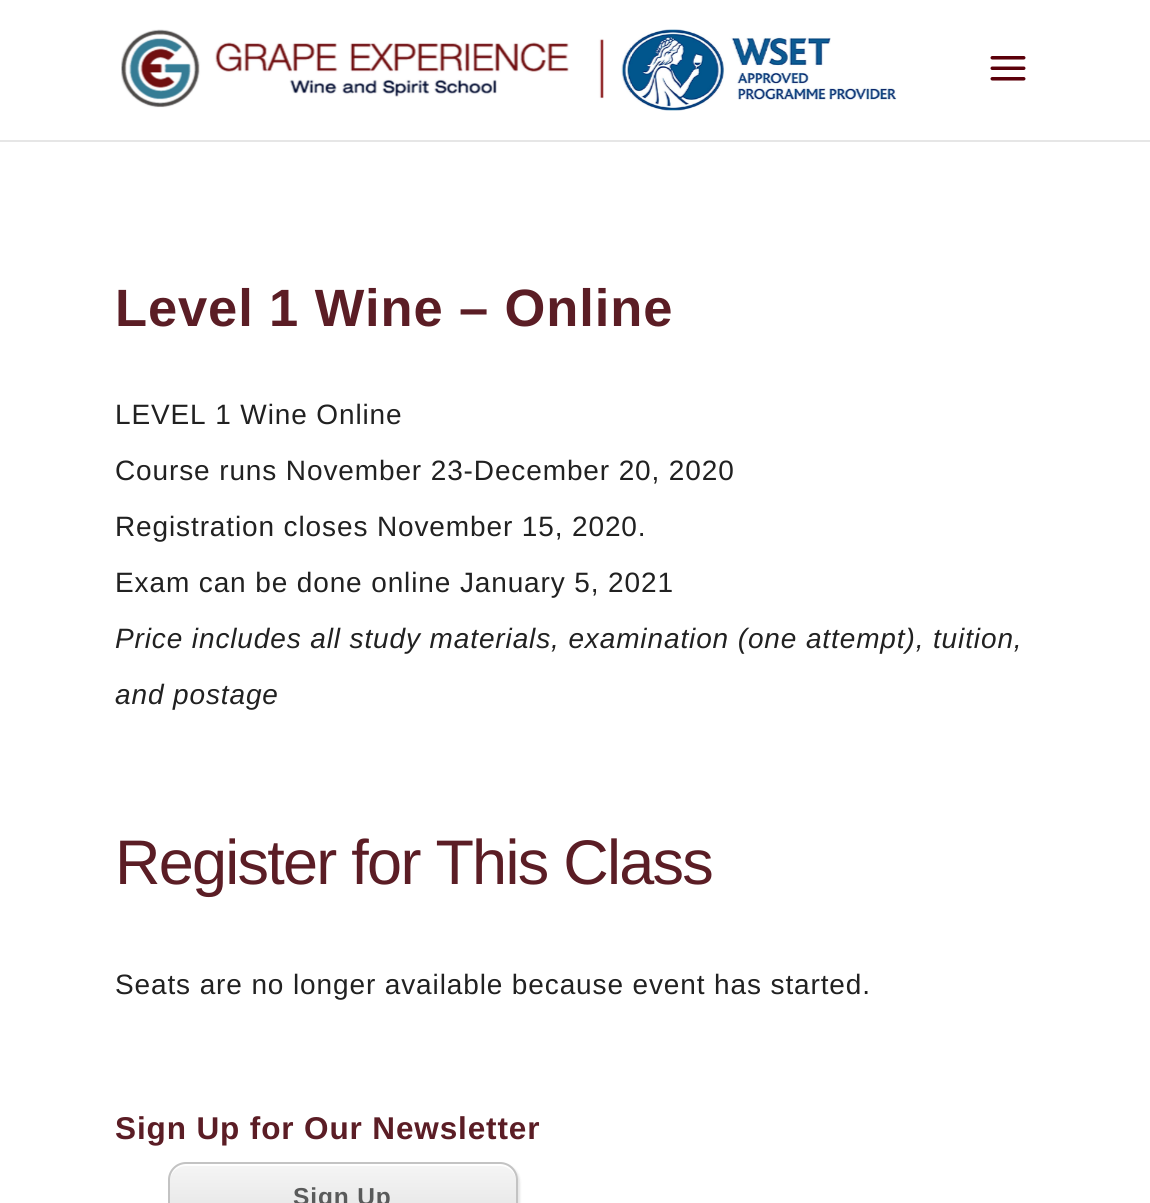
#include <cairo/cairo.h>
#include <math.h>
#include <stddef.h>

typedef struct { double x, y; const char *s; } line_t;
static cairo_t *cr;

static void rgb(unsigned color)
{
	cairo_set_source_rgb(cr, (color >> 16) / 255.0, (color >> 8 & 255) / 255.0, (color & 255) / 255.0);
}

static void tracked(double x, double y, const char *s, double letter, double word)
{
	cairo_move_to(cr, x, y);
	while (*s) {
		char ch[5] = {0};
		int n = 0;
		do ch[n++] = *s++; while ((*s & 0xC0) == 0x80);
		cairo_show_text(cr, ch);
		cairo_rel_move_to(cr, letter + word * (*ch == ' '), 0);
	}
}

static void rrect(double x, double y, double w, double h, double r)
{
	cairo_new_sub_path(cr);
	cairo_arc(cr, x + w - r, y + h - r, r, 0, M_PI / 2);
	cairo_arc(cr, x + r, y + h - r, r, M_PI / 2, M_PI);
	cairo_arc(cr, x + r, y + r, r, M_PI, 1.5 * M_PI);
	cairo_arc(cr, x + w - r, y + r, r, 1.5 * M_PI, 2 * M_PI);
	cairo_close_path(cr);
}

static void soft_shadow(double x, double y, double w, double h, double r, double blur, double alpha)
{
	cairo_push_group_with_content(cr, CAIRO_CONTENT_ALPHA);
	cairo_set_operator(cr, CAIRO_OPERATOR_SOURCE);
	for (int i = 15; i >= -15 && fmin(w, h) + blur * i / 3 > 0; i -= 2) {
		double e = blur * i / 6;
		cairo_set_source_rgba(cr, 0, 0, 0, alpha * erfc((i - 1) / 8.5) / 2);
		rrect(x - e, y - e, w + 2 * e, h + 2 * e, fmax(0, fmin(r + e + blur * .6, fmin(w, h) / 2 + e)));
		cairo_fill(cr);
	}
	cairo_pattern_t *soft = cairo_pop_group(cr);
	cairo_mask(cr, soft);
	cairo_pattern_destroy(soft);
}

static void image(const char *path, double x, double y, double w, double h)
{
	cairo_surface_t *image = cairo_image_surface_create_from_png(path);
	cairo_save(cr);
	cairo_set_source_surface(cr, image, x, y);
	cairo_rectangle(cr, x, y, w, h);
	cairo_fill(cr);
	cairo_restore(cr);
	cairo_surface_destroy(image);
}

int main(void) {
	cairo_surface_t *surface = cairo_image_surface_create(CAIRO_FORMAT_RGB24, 1150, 1203);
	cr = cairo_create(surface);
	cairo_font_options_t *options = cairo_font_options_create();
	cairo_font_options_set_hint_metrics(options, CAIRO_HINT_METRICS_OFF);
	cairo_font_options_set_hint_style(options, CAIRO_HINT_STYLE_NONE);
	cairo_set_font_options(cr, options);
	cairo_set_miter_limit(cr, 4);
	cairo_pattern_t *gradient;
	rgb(0xffffff);
	cairo_paint(cr);
	rgb(0xe6e6e6);
	cairo_new_path(cr);
	cairo_move_to(cr, 0, 140);
	cairo_line_to(cr, 0, 142);
	cairo_line_to(cr, 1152, 142);
	cairo_line_to(cr, 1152, 2);
	cairo_line_to(cr, 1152, 140);
	cairo_close_path(cr);
	cairo_fill(cr);
	image("img/1.png", 121, 29, 776, 82);
	image("img/2.png", 990, 56, 36, 25);
	rgb(0x000000);
	soft_shadow(170, 1164, 350, 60, 18, 1, 0.1);
	cairo_save(cr);
	rrect(168, 1162, 350, 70, 18);
	cairo_clip(cr);
	gradient = cairo_pattern_create_linear(343, 1164, 343, 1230);
	cairo_pattern_add_color_stop_rgba(gradient, 0, 0.961, 0.961, 0.961, 1);
	cairo_pattern_add_color_stop_rgba(gradient, 1, 0.886, 0.886, 0.886, 1);
	cairo_set_source(cr, gradient);
	cairo_pattern_destroy(gradient);
	cairo_rectangle(cr, 168, 1164, 350, 39);
	cairo_fill(cr);
	cairo_restore(cr);
	cairo_set_source_rgba(cr, 1, 1, 1, 0.9);
	cairo_new_path(cr);
	cairo_move_to(cr, 186, 1166);
	cairo_line_to(cr, 500, 1166);
	cairo_curve_to(cr, 509, 1166, 516, 1173, 516, 1181);
	cairo_line_to(cr, 516, 1180);
	cairo_curve_to(cr, 516, 1171, 509, 1164, 500, 1164);
	cairo_line_to(cr, 186, 1164);
	cairo_curve_to(cr, 177, 1164, 170, 1171, 170, 1180);
	cairo_line_to(cr, 170, 1181);
	cairo_curve_to(cr, 170, 1173, 177, 1166, 186, 1166);
	cairo_close_path(cr);
	cairo_fill(cr);
	rrect(169, 1163, 348, 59, 17);
	rgb(0xc3c3c3);
	cairo_stroke(cr);
	cairo_select_font_face(cr, "Liberation Sans", CAIRO_FONT_SLANT_NORMAL, CAIRO_FONT_WEIGHT_BOLD);
	cairo_set_font_size(cr, 52.5);
	rgb(0x5b1d25);
	tracked(115, 326, "Level 1 Wine – Online", 0.88, 0);
	cairo_select_font_face(cr, "Liberation Sans", CAIRO_FONT_SLANT_NORMAL, CAIRO_FONT_WEIGHT_NORMAL);
	cairo_set_font_size(cr, 28);
	rgb(0x212121);
	{
		static const line_t items[] = {
			{115, 424, "LEVEL 1 Wine Online"},
			{115, 480, "Course runs November 23-December 20, 2020"},
			{115, 536, "Registration closes November 15, 2020."},
			{115, 592, "Exam can be done online January 5, 2021"},
		};
		for (size_t i = 0; i < sizeof items / sizeof *items; i++) {
			tracked(items[i].x, items[i].y, items[i].s, 0.88, 0);
		}
	}
	cairo_select_font_face(cr, "Liberation Sans", CAIRO_FONT_SLANT_ITALIC, CAIRO_FONT_WEIGHT_NORMAL);
	tracked(115, 648, "Price includes all study materials, examination (one attempt), tuition,", 0.88, 0);
	tracked(115, 704, "and postage", 0.88, 0);
	cairo_select_font_face(cr, "Liberation Sans", CAIRO_FONT_SLANT_NORMAL, CAIRO_FONT_WEIGHT_NORMAL);
	cairo_set_font_size(cr, 63);
	rgb(0x5b1d25);
	tracked(115, 884, "Register for This Class", -1.75, 0);
	cairo_set_font_size(cr, 28);
	rgb(0x212121);
	tracked(115, 994, "Seats are no longer available because event has started.", 0.88, 0);
	cairo_select_font_face(cr, "Liberation Sans", CAIRO_FONT_SLANT_NORMAL, CAIRO_FONT_WEIGHT_BOLD);
	cairo_set_font_size(cr, 31.5);
	rgb(0x5b1d25);
	tracked(115, 1139, "Sign Up for Our Newsletter", 0.88, 0);
	cairo_set_font_size(cr, 24.5);
	rgb(0x595a5a);
	tracked(293, 1205, "Sign Up", 0.88, 0);
	cairo_surface_write_to_png(surface, "page.png");
	cairo_font_options_destroy(options);
	cairo_destroy(cr);
	cairo_surface_destroy(surface);
	return 0;
}
